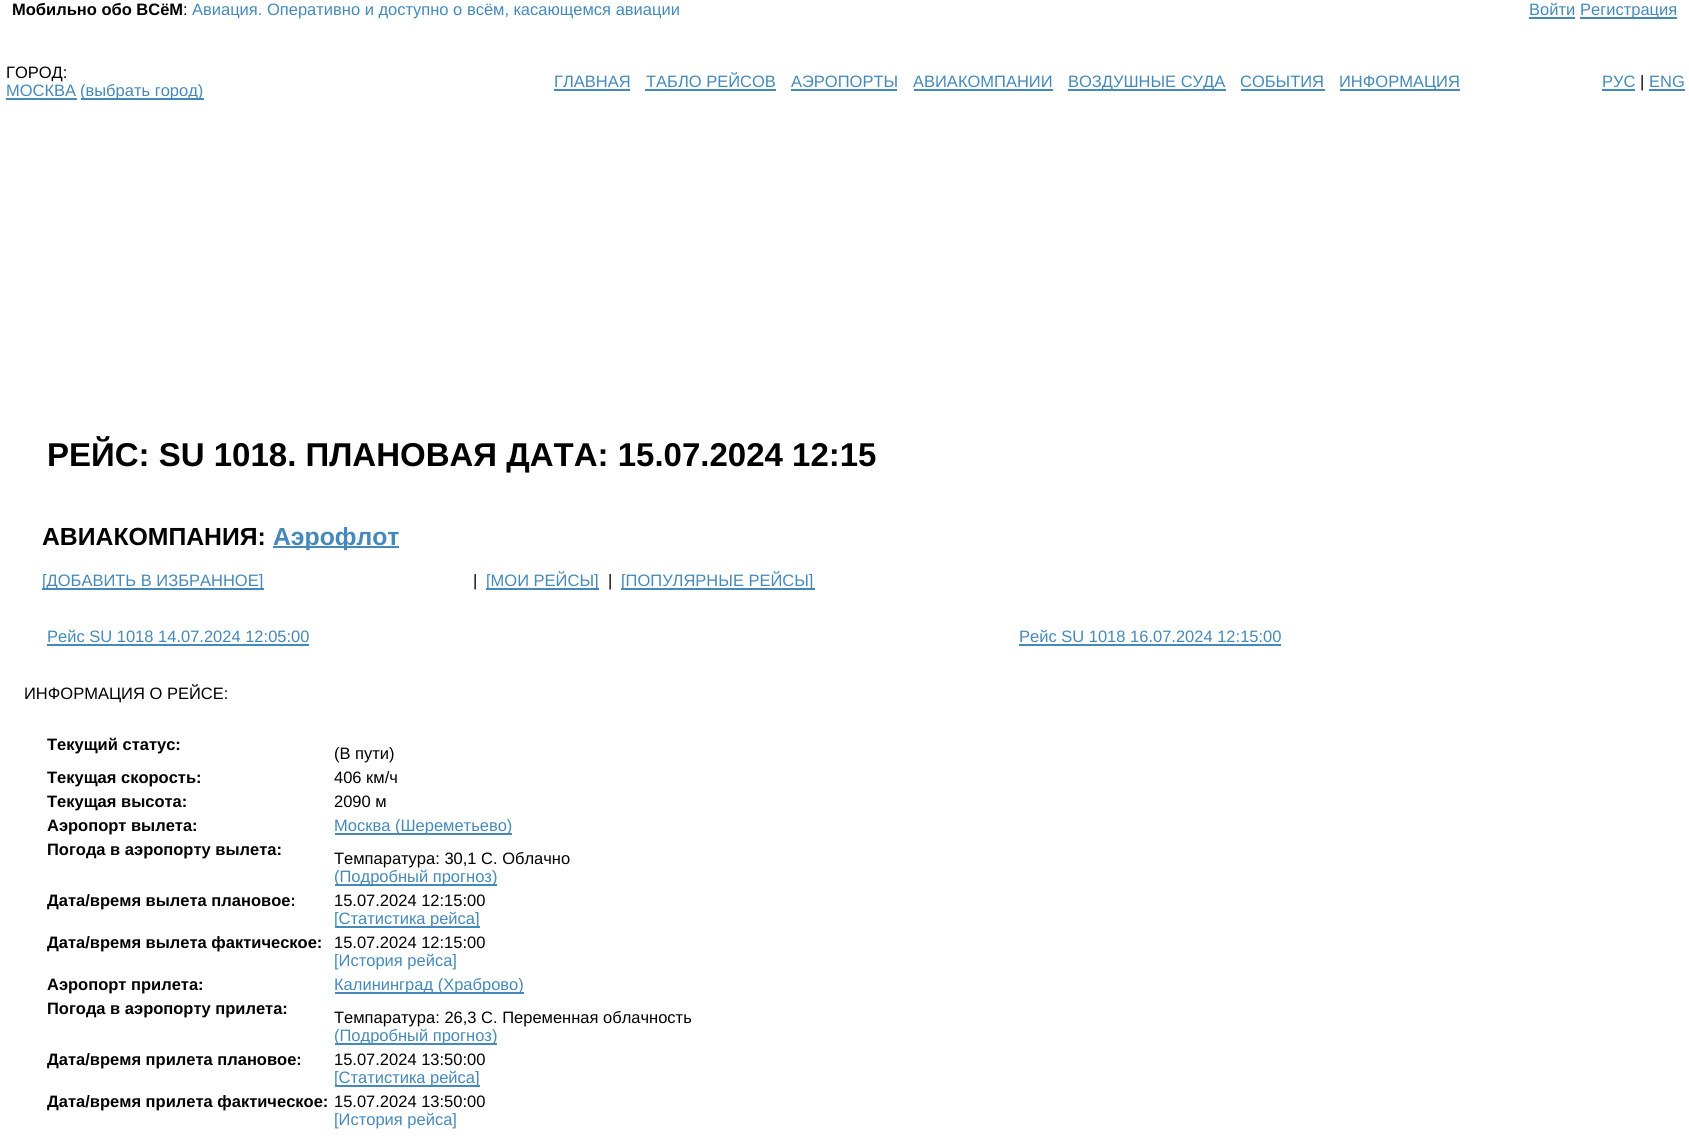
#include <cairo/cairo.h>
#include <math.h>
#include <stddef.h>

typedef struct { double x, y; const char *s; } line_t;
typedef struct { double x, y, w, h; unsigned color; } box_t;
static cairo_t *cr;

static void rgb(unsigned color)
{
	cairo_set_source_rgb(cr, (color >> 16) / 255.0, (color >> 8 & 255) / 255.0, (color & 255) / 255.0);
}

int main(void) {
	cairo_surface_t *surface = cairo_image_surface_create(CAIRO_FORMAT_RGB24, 1689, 1145);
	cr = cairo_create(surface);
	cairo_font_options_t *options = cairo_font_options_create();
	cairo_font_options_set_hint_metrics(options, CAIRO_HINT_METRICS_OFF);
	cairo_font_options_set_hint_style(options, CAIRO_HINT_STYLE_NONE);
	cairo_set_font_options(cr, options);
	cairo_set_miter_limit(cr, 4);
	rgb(0xffffff);
	cairo_paint(cr);
	{
		static const box_t items[] = {
			{1529, 17, 46, 2, 0x4489ba},
			{1580, 17, 97, 2, 0x4489ba},
			{6, 98, 71, 2, 0x4489ba},
			{81, 98, 123, 2, 0x4489ba},
			{554, 89, 76, 2, 0x4489ba},
			{645, 89, 131, 2, 0x4489ba},
			{791, 89, 106, 2, 0x4489ba},
			{914, 89, 139, 2, 0x4489ba},
			{1068, 89, 158, 2, 0x4489ba},
			{1241, 89, 84, 2, 0x4489ba},
			{1340, 89, 120, 2, 0x4489ba},
			{1602, 89, 33, 2, 0x4489ba},
			{1649, 89, 36, 2, 0x4489ba},
			{273, 546, 126, 2, 0x4489ba},
			{42, 588, 222, 2, 0x4489ba},
			{486, 588, 113, 2, 0x4489ba},
			{621, 588, 194, 2, 0x4489ba},
			{47, 644, 262, 2, 0x4489ba},
			{1019, 644, 262, 2, 0x4489ba},
			{335, 833, 177, 2, 0x4489ba},
			{335, 884, 162, 2, 0x4489ba},
			{335, 926, 145, 2, 0x4489ba},
			{335, 992, 189, 2, 0x4489ba},
			{335, 1043, 162, 2, 0x4489ba},
			{335, 1085, 145, 2, 0x4489ba},
		};
		for (size_t i = 0; i < sizeof items / sizeof *items; i++) {
			rgb(items[i].color);
			cairo_rectangle(cr, items[i].x, items[i].y, items[i].w, items[i].h);
			cairo_fill(cr);
		}
	}
	cairo_select_font_face(cr, "Liberation Sans", CAIRO_FONT_SLANT_NORMAL, CAIRO_FONT_WEIGHT_BOLD);
	cairo_set_font_size(cr, 16.5);
	rgb(0x000000);
	cairo_move_to(cr, 12, 15);
	cairo_show_text(cr, "Мобильно обо ВСёМ");
	cairo_select_font_face(cr, "Liberation Sans", CAIRO_FONT_SLANT_NORMAL, CAIRO_FONT_WEIGHT_NORMAL);
	cairo_move_to(cr, 183, 15);
	cairo_show_text(cr, ":");
	rgb(0x4489ba);
	{
		static const line_t items[] = {
			{192, 15, "Авиация. Оперативно и доступно о всём, касающемся авиации"},
			{1529, 15, "Войти"},
			{1580, 15, "Регистрация"},
		};
		for (size_t i = 0; i < sizeof items / sizeof *items; i++) {
			cairo_move_to(cr, items[i].x, items[i].y);
			cairo_show_text(cr, items[i].s);
		}
	}
	rgb(0x000000);
	cairo_move_to(cr, 6, 78);
	cairo_show_text(cr, "ГОРОД:");
	rgb(0x4489ba);
	{
		static const line_t items[] = {
			{6, 96, "МОСКВА"},
			{80, 96, "(выбрать город)"},
			{554, 87, "ГЛАВНАЯ"},
			{646, 87, "ТАБЛО РЕЙСОВ"},
			{791, 87, "АЭРОПОРТЫ"},
			{913, 87, "АВИАКОМПАНИИ"},
			{1068, 87, "ВОЗДУШНЫЕ СУДА"},
			{1240, 87, "СОБЫТИЯ"},
			{1339, 87, "ИНФОРМАЦИЯ"},
			{1602, 87, "РУС"},
		};
		for (size_t i = 0; i < sizeof items / sizeof *items; i++) {
			cairo_move_to(cr, items[i].x, items[i].y);
			cairo_show_text(cr, items[i].s);
		}
	}
	rgb(0x000000);
	cairo_move_to(cr, 1640, 87);
	cairo_show_text(cr, "|");
	rgb(0x4489ba);
	cairo_move_to(cr, 1649, 87);
	cairo_show_text(cr, "ENG");
	cairo_select_font_face(cr, "Liberation Sans", CAIRO_FONT_SLANT_NORMAL, CAIRO_FONT_WEIGHT_BOLD);
	cairo_set_font_size(cr, 33);
	rgb(0x000000);
	cairo_move_to(cr, 47, 466);
	cairo_show_text(cr, "РЕЙС: SU 1018. ПЛАНОВАЯ ДАТА: 15.07.2024 12:15");
	cairo_set_font_size(cr, 24.75);
	cairo_move_to(cr, 42, 545);
	cairo_show_text(cr, "АВИАКОМПАНИЯ:");
	rgb(0x4489ba);
	cairo_move_to(cr, 273, 545);
	cairo_show_text(cr, "Аэрофлот");
	cairo_select_font_face(cr, "Liberation Sans", CAIRO_FONT_SLANT_NORMAL, CAIRO_FONT_WEIGHT_NORMAL);
	cairo_set_font_size(cr, 16.5);
	cairo_move_to(cr, 42, 586);
	cairo_show_text(cr, "[ДОБАВИТЬ В ИЗБРАННОЕ]");
	rgb(0x000000);
	cairo_move_to(cr, 473, 586);
	cairo_show_text(cr, "|");
	rgb(0x4489ba);
	cairo_move_to(cr, 486, 586);
	cairo_show_text(cr, "[МОИ РЕЙСЫ]");
	rgb(0x000000);
	cairo_move_to(cr, 608, 586);
	cairo_show_text(cr, "|");
	rgb(0x4489ba);
	{
		static const line_t items[] = {
			{621, 586, "[ПОПУЛЯРНЫЕ РЕЙСЫ]"},
			{47, 642, "Рейс SU 1018 14.07.2024 12:05:00"},
			{1019, 642, "Рейс SU 1018 16.07.2024 12:15:00"},
		};
		for (size_t i = 0; i < sizeof items / sizeof *items; i++) {
			cairo_move_to(cr, items[i].x, items[i].y);
			cairo_show_text(cr, items[i].s);
		}
	}
	rgb(0x000000);
	cairo_move_to(cr, 24, 699);
	cairo_show_text(cr, "ИНФОРМАЦИЯ О РЕЙСЕ:");
	cairo_select_font_face(cr, "Liberation Sans", CAIRO_FONT_SLANT_NORMAL, CAIRO_FONT_WEIGHT_BOLD);
	cairo_move_to(cr, 47, 750);
	cairo_show_text(cr, "Текущий статус:");
	cairo_select_font_face(cr, "Liberation Sans", CAIRO_FONT_SLANT_NORMAL, CAIRO_FONT_WEIGHT_NORMAL);
	cairo_move_to(cr, 334, 759);
	cairo_show_text(cr, "(В пути)");
	cairo_select_font_face(cr, "Liberation Sans", CAIRO_FONT_SLANT_NORMAL, CAIRO_FONT_WEIGHT_BOLD);
	cairo_move_to(cr, 47, 783);
	cairo_show_text(cr, "Текущая скорость:");
	cairo_select_font_face(cr, "Liberation Sans", CAIRO_FONT_SLANT_NORMAL, CAIRO_FONT_WEIGHT_NORMAL);
	cairo_move_to(cr, 334, 783);
	cairo_show_text(cr, "406 км/ч");
	cairo_select_font_face(cr, "Liberation Sans", CAIRO_FONT_SLANT_NORMAL, CAIRO_FONT_WEIGHT_BOLD);
	cairo_move_to(cr, 47, 807);
	cairo_show_text(cr, "Текущая высота:");
	cairo_select_font_face(cr, "Liberation Sans", CAIRO_FONT_SLANT_NORMAL, CAIRO_FONT_WEIGHT_NORMAL);
	cairo_move_to(cr, 334, 807);
	cairo_show_text(cr, "2090 м");
	cairo_select_font_face(cr, "Liberation Sans", CAIRO_FONT_SLANT_NORMAL, CAIRO_FONT_WEIGHT_BOLD);
	cairo_move_to(cr, 47, 831);
	cairo_show_text(cr, "Аэропорт вылета:");
	cairo_select_font_face(cr, "Liberation Sans", CAIRO_FONT_SLANT_NORMAL, CAIRO_FONT_WEIGHT_NORMAL);
	rgb(0x4489ba);
	cairo_move_to(cr, 334, 831);
	cairo_show_text(cr, "Москва (Шереметьево)");
	cairo_select_font_face(cr, "Liberation Sans", CAIRO_FONT_SLANT_NORMAL, CAIRO_FONT_WEIGHT_BOLD);
	rgb(0x000000);
	cairo_move_to(cr, 47, 855);
	cairo_show_text(cr, "Погода в аэропорту вылета:");
	cairo_select_font_face(cr, "Liberation Sans", CAIRO_FONT_SLANT_NORMAL, CAIRO_FONT_WEIGHT_NORMAL);
	cairo_move_to(cr, 334, 864);
	cairo_show_text(cr, "Темпаратура: 30,1 C. Облачно");
	rgb(0x4489ba);
	cairo_move_to(cr, 334, 882);
	cairo_show_text(cr, "(Подробный прогноз)");
	cairo_select_font_face(cr, "Liberation Sans", CAIRO_FONT_SLANT_NORMAL, CAIRO_FONT_WEIGHT_BOLD);
	rgb(0x000000);
	cairo_move_to(cr, 47, 906);
	cairo_show_text(cr, "Дата/время вылета плановое:");
	cairo_select_font_face(cr, "Liberation Sans", CAIRO_FONT_SLANT_NORMAL, CAIRO_FONT_WEIGHT_NORMAL);
	cairo_move_to(cr, 334, 906);
	cairo_show_text(cr, "15.07.2024 12:15:00");
	rgb(0x4489ba);
	cairo_move_to(cr, 334, 924);
	cairo_show_text(cr, "[Статистика рейса]");
	cairo_select_font_face(cr, "Liberation Sans", CAIRO_FONT_SLANT_NORMAL, CAIRO_FONT_WEIGHT_BOLD);
	rgb(0x000000);
	cairo_move_to(cr, 47, 948);
	cairo_show_text(cr, "Дата/время вылета фактическое:");
	cairo_select_font_face(cr, "Liberation Sans", CAIRO_FONT_SLANT_NORMAL, CAIRO_FONT_WEIGHT_NORMAL);
	cairo_move_to(cr, 334, 948);
	cairo_show_text(cr, "15.07.2024 12:15:00");
	rgb(0x4489ba);
	cairo_move_to(cr, 334, 966);
	cairo_show_text(cr, "[История рейса]");
	cairo_select_font_face(cr, "Liberation Sans", CAIRO_FONT_SLANT_NORMAL, CAIRO_FONT_WEIGHT_BOLD);
	rgb(0x000000);
	cairo_move_to(cr, 47, 990);
	cairo_show_text(cr, "Аэропорт прилета:");
	cairo_select_font_face(cr, "Liberation Sans", CAIRO_FONT_SLANT_NORMAL, CAIRO_FONT_WEIGHT_NORMAL);
	rgb(0x4489ba);
	cairo_move_to(cr, 334, 990);
	cairo_show_text(cr, "Калининград (Храброво)");
	cairo_select_font_face(cr, "Liberation Sans", CAIRO_FONT_SLANT_NORMAL, CAIRO_FONT_WEIGHT_BOLD);
	rgb(0x000000);
	cairo_move_to(cr, 47, 1014);
	cairo_show_text(cr, "Погода в аэропорту прилета:");
	cairo_select_font_face(cr, "Liberation Sans", CAIRO_FONT_SLANT_NORMAL, CAIRO_FONT_WEIGHT_NORMAL);
	cairo_move_to(cr, 334, 1023);
	cairo_show_text(cr, "Темпаратура: 26,3 C. Переменная облачность");
	rgb(0x4489ba);
	cairo_move_to(cr, 334, 1041);
	cairo_show_text(cr, "(Подробный прогноз)");
	cairo_select_font_face(cr, "Liberation Sans", CAIRO_FONT_SLANT_NORMAL, CAIRO_FONT_WEIGHT_BOLD);
	rgb(0x000000);
	cairo_move_to(cr, 47, 1065);
	cairo_show_text(cr, "Дата/время прилета плановое:");
	cairo_select_font_face(cr, "Liberation Sans", CAIRO_FONT_SLANT_NORMAL, CAIRO_FONT_WEIGHT_NORMAL);
	cairo_move_to(cr, 334, 1065);
	cairo_show_text(cr, "15.07.2024 13:50:00");
	rgb(0x4489ba);
	cairo_move_to(cr, 334, 1083);
	cairo_show_text(cr, "[Статистика рейса]");
	cairo_select_font_face(cr, "Liberation Sans", CAIRO_FONT_SLANT_NORMAL, CAIRO_FONT_WEIGHT_BOLD);
	rgb(0x000000);
	cairo_move_to(cr, 47, 1107);
	cairo_show_text(cr, "Дата/время прилета фактическое:");
	cairo_select_font_face(cr, "Liberation Sans", CAIRO_FONT_SLANT_NORMAL, CAIRO_FONT_WEIGHT_NORMAL);
	cairo_move_to(cr, 334, 1107);
	cairo_show_text(cr, "15.07.2024 13:50:00");
	rgb(0x4489ba);
	cairo_move_to(cr, 334, 1125);
	cairo_show_text(cr, "[История рейса]");
	cairo_surface_write_to_png(surface, "page.png");
	cairo_font_options_destroy(options);
	cairo_destroy(cr);
	cairo_surface_destroy(surface);
	return 0;
}
